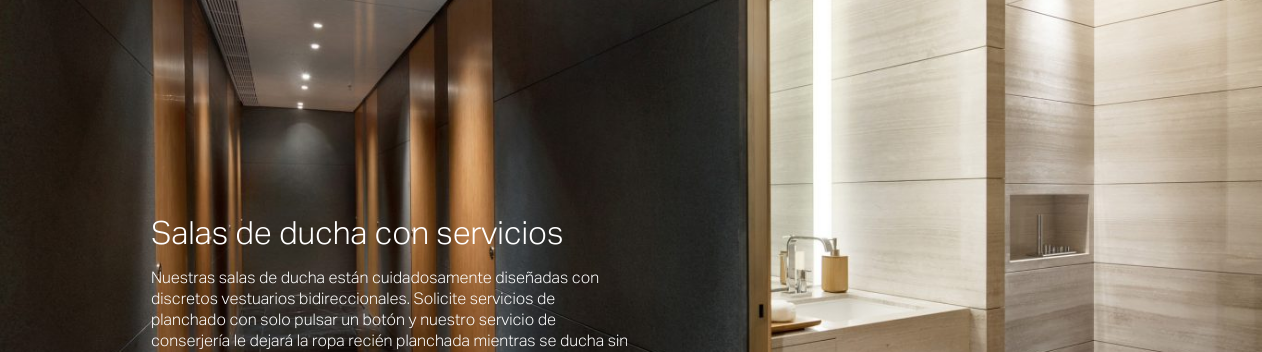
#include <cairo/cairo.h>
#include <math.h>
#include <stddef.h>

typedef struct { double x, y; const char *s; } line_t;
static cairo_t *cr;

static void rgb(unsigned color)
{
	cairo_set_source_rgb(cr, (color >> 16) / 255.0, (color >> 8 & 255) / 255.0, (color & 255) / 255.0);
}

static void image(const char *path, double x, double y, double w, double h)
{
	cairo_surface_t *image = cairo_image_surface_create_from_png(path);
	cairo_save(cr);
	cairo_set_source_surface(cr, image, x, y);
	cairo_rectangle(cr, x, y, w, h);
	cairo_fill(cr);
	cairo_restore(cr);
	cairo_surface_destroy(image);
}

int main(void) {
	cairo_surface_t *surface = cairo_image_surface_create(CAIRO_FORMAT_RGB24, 1262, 352);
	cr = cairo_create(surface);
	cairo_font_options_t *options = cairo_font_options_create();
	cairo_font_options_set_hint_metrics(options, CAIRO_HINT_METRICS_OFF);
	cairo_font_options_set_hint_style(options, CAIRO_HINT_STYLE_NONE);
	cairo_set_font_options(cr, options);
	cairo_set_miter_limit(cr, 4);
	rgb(0xffffff);
	cairo_paint(cr);
	image("img/1.png", 0, 0, 1262, 352);
	cairo_select_font_face(cr, "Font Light", CAIRO_FONT_SLANT_NORMAL, CAIRO_FONT_WEIGHT_NORMAL);
	cairo_set_font_size(cr, 32);
	rgb(0xffffff);
	cairo_move_to(cr, 151, 244);
	cairo_show_text(cr, "Salas de ducha con servicios");
	cairo_set_font_size(cr, 16);
	{
		static const line_t items[] = {
			{151, 283, "Nuestras salas de ducha están cuidadosamente diseñadas con"},
			{151, 304, "discretos vestuarios bidireccionales. Solicite servicios de"},
			{151, 325, "planchado con solo pulsar un botón y nuestro servicio de"},
			{151, 346, "conserjería le dejará la ropa recién planchada mientras se ducha sin"},
		};
		for (size_t i = 0; i < sizeof items / sizeof *items; i++) {
			cairo_move_to(cr, items[i].x, items[i].y);
			cairo_show_text(cr, items[i].s);
		}
	}
	cairo_surface_write_to_png(surface, "page.png");
	cairo_font_options_destroy(options);
	cairo_destroy(cr);
	cairo_surface_destroy(surface);
	return 0;
}
